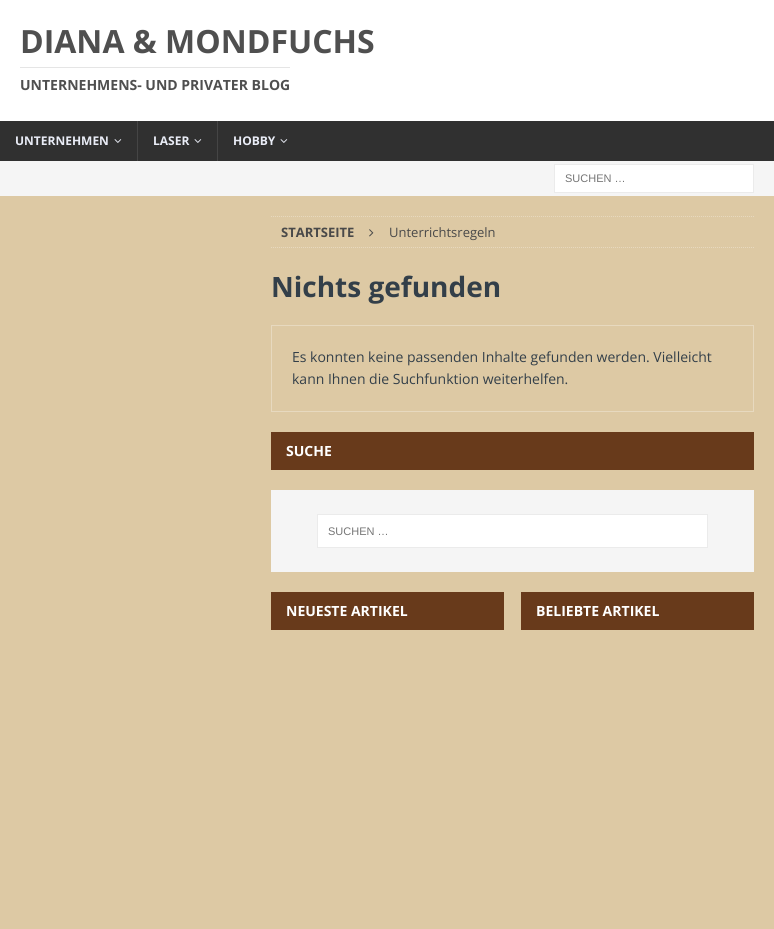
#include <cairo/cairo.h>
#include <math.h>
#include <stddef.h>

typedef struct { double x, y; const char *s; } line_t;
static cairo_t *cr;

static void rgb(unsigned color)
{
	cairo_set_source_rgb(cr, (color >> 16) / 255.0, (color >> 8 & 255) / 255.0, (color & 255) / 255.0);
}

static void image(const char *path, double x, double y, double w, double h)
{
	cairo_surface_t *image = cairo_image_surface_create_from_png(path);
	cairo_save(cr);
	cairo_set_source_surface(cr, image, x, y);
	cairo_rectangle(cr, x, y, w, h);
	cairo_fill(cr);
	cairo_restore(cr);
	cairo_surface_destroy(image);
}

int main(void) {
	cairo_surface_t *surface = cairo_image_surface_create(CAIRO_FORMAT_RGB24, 774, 929);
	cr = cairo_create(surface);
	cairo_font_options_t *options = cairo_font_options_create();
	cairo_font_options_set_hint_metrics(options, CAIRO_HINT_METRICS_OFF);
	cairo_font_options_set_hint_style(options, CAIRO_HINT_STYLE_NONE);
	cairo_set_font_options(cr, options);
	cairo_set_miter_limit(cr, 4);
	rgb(0xffffff);
	cairo_paint(cr);
	rgb(0xe5e5e5);
	cairo_rectangle(cr, 20, 67, 270, 1);
	cairo_fill(cr);
	rgb(0x303030);
	cairo_rectangle(cr, 0, 121, 774, 40);
	cairo_fill(cr);
	image("img/1.png", 114, 139, 8, 4);
	rgb(0x454545);
	cairo_rectangle(cr, 137, 121, 1, 40);
	cairo_fill(cr);
	image("img/1.png", 194, 139, 8, 4);
	cairo_rectangle(cr, 217, 121, 1, 40);
	cairo_fill(cr);
	image("img/1.png", 280, 139, 8, 4);
	rgb(0xf5f5f5);
	cairo_rectangle(cr, 0, 161, 774, 35);
	cairo_fill(cr);
	rgb(0xffffff);
	cairo_rectangle(cr, 554.5, 164.5, 199, 28);
	cairo_fill_preserve(cr);
	rgb(0xebebeb);
	cairo_set_line_width(cr, 1);
	cairo_stroke(cr);
	rgb(0xddc9a4);
	cairo_rectangle(cr, 0, 196, 774, 733);
	cairo_fill(cr);
	cairo_new_path(cr);
	cairo_move_to(cr, 271, 216.5);
	cairo_line_to(cr, 754, 216.5);
	rgb(0xe7d9bf);
	cairo_set_dash(cr, (double[]){1, 1}, 2, 0);
	cairo_stroke(cr);
	cairo_new_path(cr);
	cairo_move_to(cr, 271, 247.5);
	cairo_line_to(cr, 754, 247.5);
	cairo_stroke(cr);
	image("img/2.png", 369, 229, 5, 8);
	cairo_rectangle(cr, 271.5, 325.5, 482, 86);
	cairo_set_dash(cr, NULL, 0, 0);
	cairo_stroke(cr);
	rgb(0x683a1b);
	cairo_rectangle(cr, 271, 432, 483, 38);
	cairo_fill(cr);
	rgb(0xf5f5f5);
	cairo_rectangle(cr, 271, 490, 483, 82);
	cairo_fill(cr);
	rgb(0xffffff);
	cairo_rectangle(cr, 317.5, 514.5, 390, 33);
	cairo_fill_preserve(cr);
	rgb(0xebebeb);
	cairo_stroke(cr);
	rgb(0x683a1b);
	cairo_rectangle(cr, 271, 592, 233, 38);
	cairo_fill(cr);
	cairo_rectangle(cr, 521, 592, 233, 38);
	cairo_fill(cr);
	cairo_select_font_face(cr, "Open Sans", CAIRO_FONT_SLANT_NORMAL, CAIRO_FONT_WEIGHT_BOLD);
	cairo_set_font_size(cr, 32);
	rgb(0x4f4f4f);
	cairo_move_to(cr, 20, 53);
	cairo_show_text(cr, "DIANA & MONDFUCHS");
	cairo_set_font_size(cr, 14);
	cairo_move_to(cr, 20, 90);
	cairo_show_text(cr, "UNTERNEHMENS- UND PRIVATER BLOG");
	cairo_set_font_size(cr, 12);
	rgb(0xe9ecf6);
	{
		static const line_t items[] = {
			{15, 145, "UNTERNEHMEN"},
			{153, 145, "LASER"},
			{233, 145, "HOBBY"},
		};
		for (size_t i = 0; i < sizeof items / sizeof *items; i++) {
			cairo_move_to(cr, items[i].x, items[i].y);
			cairo_show_text(cr, items[i].s);
		}
	}
	cairo_select_font_face(cr, "Liberation Sans", CAIRO_FONT_SLANT_NORMAL, CAIRO_FONT_WEIGHT_NORMAL);
	cairo_set_font_size(cr, 11);
	rgb(0x757575);
	cairo_move_to(cr, 565, 182);
	cairo_show_text(cr, "SUCHEN …");
	cairo_select_font_face(cr, "Open Sans", CAIRO_FONT_SLANT_NORMAL, CAIRO_FONT_WEIGHT_BOLD);
	cairo_set_font_size(cr, 13);
	rgb(0x494949);
	cairo_move_to(cr, 281, 237);
	cairo_show_text(cr, "STARTSEITE");
	cairo_select_font_face(cr, "Open Sans", CAIRO_FONT_SLANT_NORMAL, CAIRO_FONT_WEIGHT_NORMAL);
	cairo_move_to(cr, 389, 237);
	cairo_show_text(cr, "Unterrichtsregeln");
	cairo_select_font_face(cr, "Open Sans", CAIRO_FONT_SLANT_NORMAL, CAIRO_FONT_WEIGHT_BOLD);
	cairo_set_font_size(cr, 28);
	rgb(0x333f49);
	cairo_move_to(cr, 271, 297);
	cairo_show_text(cr, "Nichts gefunden");
	cairo_select_font_face(cr, "Open Sans", CAIRO_FONT_SLANT_NORMAL, CAIRO_FONT_WEIGHT_NORMAL);
	cairo_set_font_size(cr, 14);
	cairo_move_to(cr, 292, 362);
	cairo_show_text(cr, "Es konnten keine passenden Inhalte gefunden werden. Vielleicht");
	cairo_move_to(cr, 292, 384);
	cairo_show_text(cr, "kann Ihnen die Suchfunktion weiterhelfen.");
	cairo_select_font_face(cr, "Open Sans", CAIRO_FONT_SLANT_NORMAL, CAIRO_FONT_WEIGHT_BOLD);
	rgb(0xffffff);
	cairo_move_to(cr, 286, 456);
	cairo_show_text(cr, "SUCHE");
	cairo_select_font_face(cr, "Liberation Sans", CAIRO_FONT_SLANT_NORMAL, CAIRO_FONT_WEIGHT_NORMAL);
	cairo_set_font_size(cr, 11);
	rgb(0x757575);
	cairo_move_to(cr, 328, 535);
	cairo_show_text(cr, "SUCHEN …");
	cairo_select_font_face(cr, "Open Sans", CAIRO_FONT_SLANT_NORMAL, CAIRO_FONT_WEIGHT_BOLD);
	cairo_set_font_size(cr, 14);
	rgb(0xffffff);
	cairo_move_to(cr, 286, 616);
	cairo_show_text(cr, "NEUESTE ARTIKEL");
	cairo_move_to(cr, 536, 616);
	cairo_show_text(cr, "BELIEBTE ARTIKEL");
	cairo_surface_write_to_png(surface, "page.png");
	cairo_font_options_destroy(options);
	cairo_destroy(cr);
	cairo_surface_destroy(surface);
	return 0;
}
